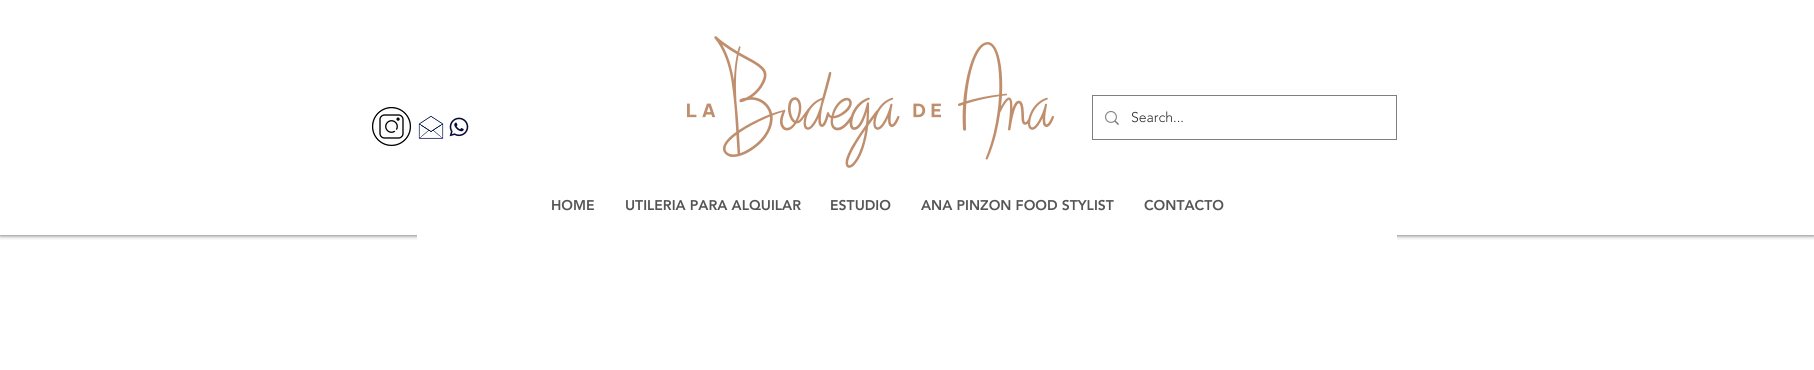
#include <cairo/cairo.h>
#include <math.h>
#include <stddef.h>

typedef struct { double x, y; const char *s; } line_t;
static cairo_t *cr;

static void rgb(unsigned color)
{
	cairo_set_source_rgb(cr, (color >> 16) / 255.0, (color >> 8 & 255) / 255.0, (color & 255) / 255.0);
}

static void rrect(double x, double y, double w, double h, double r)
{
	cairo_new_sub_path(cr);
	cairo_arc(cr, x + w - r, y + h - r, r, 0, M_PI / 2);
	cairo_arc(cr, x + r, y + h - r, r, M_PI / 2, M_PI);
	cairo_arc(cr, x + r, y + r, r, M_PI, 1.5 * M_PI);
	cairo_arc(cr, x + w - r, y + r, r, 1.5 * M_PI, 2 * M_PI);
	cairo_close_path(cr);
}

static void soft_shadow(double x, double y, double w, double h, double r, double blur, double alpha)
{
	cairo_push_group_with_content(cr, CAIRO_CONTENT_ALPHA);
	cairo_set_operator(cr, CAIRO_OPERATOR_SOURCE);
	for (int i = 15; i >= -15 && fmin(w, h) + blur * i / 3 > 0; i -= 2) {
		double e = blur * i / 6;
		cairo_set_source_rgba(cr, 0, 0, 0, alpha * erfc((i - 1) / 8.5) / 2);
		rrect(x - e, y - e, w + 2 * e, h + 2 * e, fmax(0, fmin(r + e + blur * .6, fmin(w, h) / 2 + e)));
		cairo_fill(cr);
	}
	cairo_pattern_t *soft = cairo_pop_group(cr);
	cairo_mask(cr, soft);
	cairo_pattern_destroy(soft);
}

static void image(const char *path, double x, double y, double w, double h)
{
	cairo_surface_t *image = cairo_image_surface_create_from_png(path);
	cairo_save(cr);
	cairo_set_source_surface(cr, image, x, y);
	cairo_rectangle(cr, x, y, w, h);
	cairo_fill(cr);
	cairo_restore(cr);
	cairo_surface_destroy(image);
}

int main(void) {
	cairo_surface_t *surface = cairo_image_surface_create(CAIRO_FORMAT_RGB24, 1814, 370);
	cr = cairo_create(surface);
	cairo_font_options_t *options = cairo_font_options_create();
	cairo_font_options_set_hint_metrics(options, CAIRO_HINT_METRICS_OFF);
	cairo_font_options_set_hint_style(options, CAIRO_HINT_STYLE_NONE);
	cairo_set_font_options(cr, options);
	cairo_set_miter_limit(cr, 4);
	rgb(0xffffff);
	cairo_paint(cr);
	cairo_save(cr);
	cairo_rectangle(cr, 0, 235, 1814, 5);
	cairo_clip(cr);
	rgb(0x000000);
	soft_shadow(0, 0, 1814, 235, 0, 2.5, 0.7);
	cairo_restore(cr);
	image("img/1.png", 372, 107, 39, 39);
	image("img/2.png", 418, 116, 26, 23);
	image("img/3.png", 449, 117, 20, 20);
	image("img/4.png", 687, 36, 367, 132);
	cairo_rectangle(cr, 1092.5, 95.5, 304, 44);
	rgb(0x7f7f7f);
	cairo_set_line_width(cr, 1);
	cairo_stroke(cr);
	image("img/5.png", 1105, 111, 14, 14);
	rgb(0xffffff);
	cairo_rectangle(cr, 417, 235, 980, 5);
	cairo_fill(cr);
	cairo_select_font_face(cr, "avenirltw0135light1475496 Light", CAIRO_FONT_SLANT_NORMAL, CAIRO_FONT_WEIGHT_NORMAL);
	cairo_set_font_size(cr, 14);
	rgb(0x2a2a2a);
	cairo_move_to(cr, 1131, 122);
	cairo_show_text(cr, "Search...");
	cairo_select_font_face(cr, "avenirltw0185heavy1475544 Black", CAIRO_FONT_SLANT_NORMAL, CAIRO_FONT_WEIGHT_NORMAL);
	rgb(0x555555);
	{
		static const line_t items[] = {
			{551, 210, "HOME"},
			{625, 210, "UTILERIA PARA ALQUILAR"},
			{830, 210, "ESTUDIO"},
			{921, 210, "ANA PINZON FOOD STYLIST"},
			{1144, 210, "CONTACTO"},
		};
		for (size_t i = 0; i < sizeof items / sizeof *items; i++) {
			cairo_move_to(cr, items[i].x, items[i].y);
			cairo_show_text(cr, items[i].s);
		}
	}
	cairo_surface_write_to_png(surface, "page.png");
	cairo_font_options_destroy(options);
	cairo_destroy(cr);
	cairo_surface_destroy(surface);
	return 0;
}
